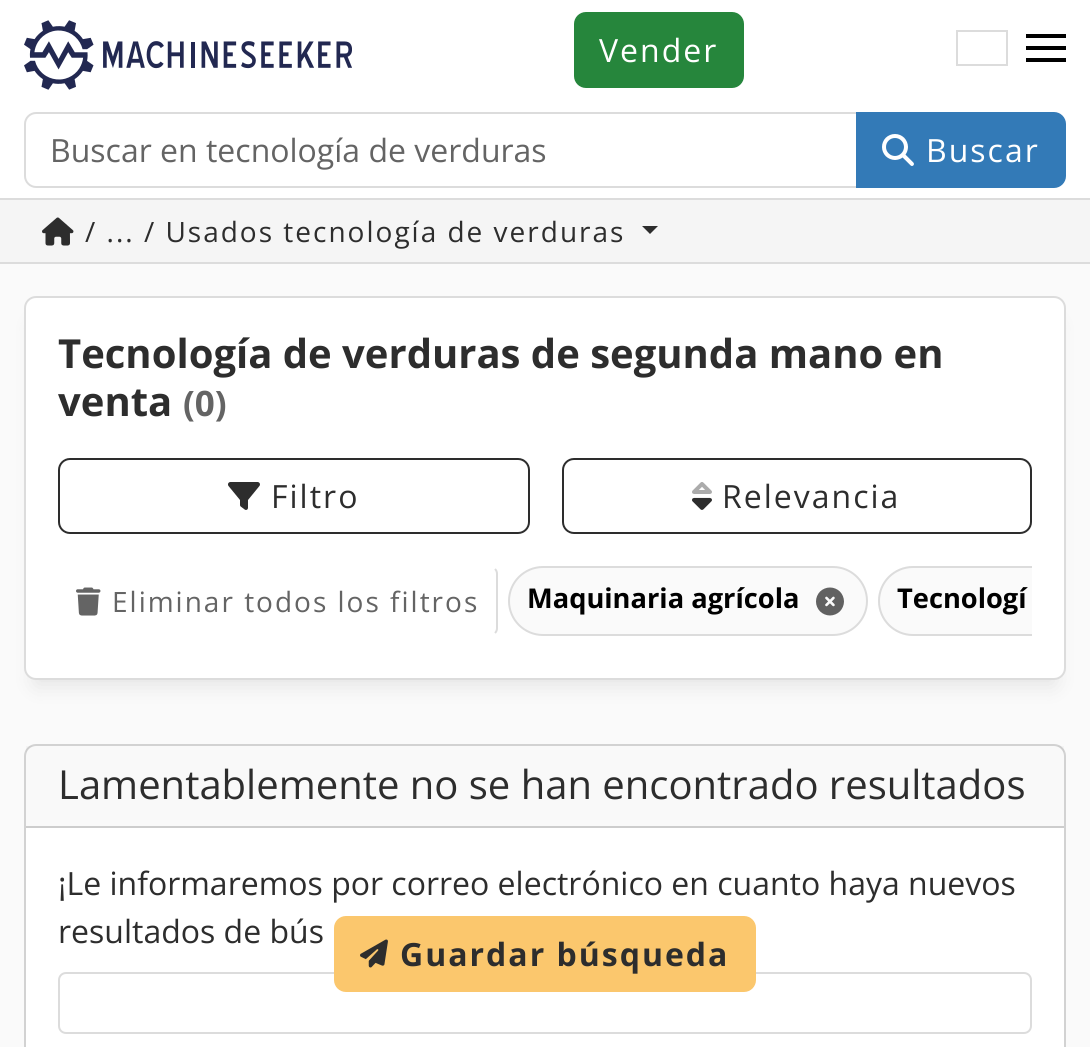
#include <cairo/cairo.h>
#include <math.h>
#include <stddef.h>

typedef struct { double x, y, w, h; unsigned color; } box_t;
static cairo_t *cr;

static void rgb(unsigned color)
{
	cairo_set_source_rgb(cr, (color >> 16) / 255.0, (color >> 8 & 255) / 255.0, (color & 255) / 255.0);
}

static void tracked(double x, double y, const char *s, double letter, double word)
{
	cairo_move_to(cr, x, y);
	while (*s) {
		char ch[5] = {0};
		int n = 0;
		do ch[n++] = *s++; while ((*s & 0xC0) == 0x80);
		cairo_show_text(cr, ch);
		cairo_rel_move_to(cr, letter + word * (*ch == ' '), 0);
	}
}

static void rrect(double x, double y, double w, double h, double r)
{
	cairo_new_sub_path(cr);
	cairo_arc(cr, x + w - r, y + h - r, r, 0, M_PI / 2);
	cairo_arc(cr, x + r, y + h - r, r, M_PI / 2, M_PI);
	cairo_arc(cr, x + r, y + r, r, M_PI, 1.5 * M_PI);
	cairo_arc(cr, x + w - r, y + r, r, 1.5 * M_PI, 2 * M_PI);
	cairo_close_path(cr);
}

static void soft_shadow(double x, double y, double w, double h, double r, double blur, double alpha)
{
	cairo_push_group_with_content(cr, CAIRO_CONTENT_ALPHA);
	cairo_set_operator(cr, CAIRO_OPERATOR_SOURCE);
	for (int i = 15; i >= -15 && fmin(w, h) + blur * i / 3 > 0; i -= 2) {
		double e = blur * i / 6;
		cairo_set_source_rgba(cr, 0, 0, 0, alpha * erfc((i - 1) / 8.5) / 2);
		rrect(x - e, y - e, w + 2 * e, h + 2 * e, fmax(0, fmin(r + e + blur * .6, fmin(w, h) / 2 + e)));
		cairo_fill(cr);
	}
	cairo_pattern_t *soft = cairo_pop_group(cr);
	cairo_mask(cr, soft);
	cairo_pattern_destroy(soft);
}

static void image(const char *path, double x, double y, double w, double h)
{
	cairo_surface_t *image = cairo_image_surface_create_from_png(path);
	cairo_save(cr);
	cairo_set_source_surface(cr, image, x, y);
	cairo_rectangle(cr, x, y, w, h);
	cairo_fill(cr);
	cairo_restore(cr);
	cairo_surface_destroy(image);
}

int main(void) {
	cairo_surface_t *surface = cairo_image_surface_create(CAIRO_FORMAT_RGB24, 1090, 1047);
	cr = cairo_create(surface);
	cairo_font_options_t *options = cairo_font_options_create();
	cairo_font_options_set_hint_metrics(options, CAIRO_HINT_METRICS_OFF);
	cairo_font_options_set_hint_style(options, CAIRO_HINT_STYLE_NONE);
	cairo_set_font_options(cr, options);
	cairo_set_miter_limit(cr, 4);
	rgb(0xffffff);
	cairo_paint(cr);
	rgb(0xdcdcdc);
	cairo_rectangle(cr, 0, 198, 1090, 2);
	cairo_fill(cr);
	image("img/1.png", 24, 20, 328, 70);
	rgb(0x26863c);
	rrect(575, 13, 168, 74, 11);
	cairo_fill_preserve(cr);
	cairo_stroke(cr);
	cairo_rectangle(cr, 957, 31, 50, 34);
	rgb(0xdcdcdc);
	cairo_stroke(cr);
	{
		static const box_t items[] = {
			{1026, 34, 40, 4, 0x000000},
			{1026, 46, 40, 4, 0x000000},
			{1026, 58, 40, 4, 0x000000},
		};
		for (size_t i = 0; i < sizeof items / sizeof *items; i++) {
			rgb(items[i].color);
			cairo_rectangle(cr, items[i].x, items[i].y, items[i].w, items[i].h);
			cairo_fill(cr);
		}
	}
	cairo_new_path(cr);
	cairo_move_to(cr, 36, 113);
	cairo_line_to(cr, 857, 113);
	cairo_line_to(cr, 857, 187);
	cairo_line_to(cr, 36, 187);
	cairo_curve_to(cr, 30, 187, 25, 182, 25, 176);
	cairo_line_to(cr, 25, 124);
	cairo_curve_to(cr, 25, 118, 30, 113, 36, 113);
	cairo_close_path(cr);
	rgb(0xdcdcdc);
	cairo_stroke(cr);
	rgb(0x337ab7);
	cairo_new_path(cr);
	cairo_move_to(cr, 857, 113);
	cairo_line_to(cr, 1054, 113);
	cairo_curve_to(cr, 1060, 113, 1065, 118, 1065, 124);
	cairo_line_to(cr, 1065, 176);
	cairo_curve_to(cr, 1065, 182, 1060, 187, 1054, 187);
	cairo_line_to(cr, 857, 187);
	cairo_close_path(cr);
	cairo_fill_preserve(cr);
	cairo_stroke(cr);
	image("img/2.png", 882, 134, 32, 32);
	rgb(0xf5f5f5);
	cairo_rectangle(cr, 0, 200, 1090, 62);
	cairo_fill(cr);
	rgb(0xdcdcdc);
	cairo_rectangle(cr, 0, 262, 1090, 2);
	cairo_fill(cr);
	image("img/3.png", 42, 217, 32, 29);
	rgb(0x2d2d2d);
	cairo_new_path(cr);
	cairo_move_to(cr, 642, 226);
	cairo_line_to(cr, 658, 226);
	cairo_line_to(cr, 650, 234);
	cairo_close_path(cr);
	cairo_fill(cr);
	rgb(0xfafafa);
	cairo_rectangle(cr, 0, 264, 1090, 783);
	cairo_fill(cr);
	rgb(0x000000);
	soft_shadow(36, 324, 1018, 360, 0, 11, 0.1);
	rgb(0xffffff);
	rrect(25, 297, 1040, 382, 11);
	cairo_fill_preserve(cr);
	rgb(0xdcdcdc);
	cairo_stroke(cr);
	rrect(59, 459, 470, 74, 11);
	rgb(0x2d2d2d);
	cairo_stroke(cr);
	image("img/4.png", 228, 482, 32, 28);
	rrect(563, 459, 468, 74, 11);
	cairo_stroke(cr);
	image("img/5.png", 692, 482, 20, 12);
	image("img/6.png", 692, 497, 20, 13);
	cairo_new_path(cr);
	cairo_move_to(cr, 495, 569);
	cairo_curve_to(cr, 496.5, 570.5, 497, 572, 497, 574);
	cairo_line_to(cr, 497, 628);
	cairo_curve_to(cr, 497, 630, 496.5, 631.5, 495, 633);
	rgb(0xdcdcdc);
	cairo_stroke(cr);
	image("img/7.png", 76, 587, 25, 29);
	rgb(0xfafafa);
	rrect(509, 567, 358, 68, 34);
	cairo_fill_preserve(cr);
	rgb(0xdcdcdc);
	cairo_stroke(cr);
	image("img/8.png", 816, 587, 28, 29);
	rgb(0xfafafa);
	cairo_new_path(cr);
	cairo_move_to(cr, 913, 566);
	cairo_line_to(cr, 1032, 566);
	cairo_line_to(cr, 1032, 636);
	cairo_line_to(cr, 913, 636);
	cairo_curve_to(cr, 893.5, 636, 878, 620.5, 878, 601);
	cairo_curve_to(cr, 878, 581.5, 893.5, 566, 913, 566);
	cairo_close_path(cr);
	cairo_fill(cr);
	cairo_save(cr);
	cairo_rectangle(cr, 58, 566, 974, 80);
	cairo_clip(cr);
	rrect(879, 567, 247, 68, 34);
	rgb(0xdcdcdc);
	cairo_stroke(cr);
	cairo_restore(cr);
	rgb(0xffffff);
	rrect(25, 745, 1040, 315, 11);
	cairo_fill_preserve(cr);
	rgb(0xd2d2d2);
	cairo_stroke(cr);
	cairo_set_source_rgba(cr, 0.176, 0.176, 0.176, 0.03);
	cairo_rectangle(cr, 26, 746, 1038, 80);
	cairo_fill(cr);
	rgb(0xcdcdcd);
	cairo_rectangle(cr, 26, 826, 1038, 2);
	cairo_fill(cr);
	rrect(59, 973, 972, 60, 7);
	rgb(0xdcdcdc);
	cairo_stroke(cr);
	rgb(0xfbc76d);
	rrect(335, 917, 420, 74, 11);
	cairo_fill_preserve(cr);
	cairo_stroke(cr);
	image("img/9.png", 360, 939, 28, 29);
	cairo_select_font_face(cr, "Open Sans", CAIRO_FONT_SLANT_NORMAL, CAIRO_FONT_WEIGHT_NORMAL);
	cairo_set_font_size(cr, 32);
	rgb(0xffffff);
	tracked(599, 62, "Vender", 2, 0);
	rgb(0x646464);
	cairo_move_to(cr, 50, 162);
	cairo_show_text(cr, "Buscar en tecnología de verduras");
	rgb(0xffffff);
	tracked(926, 162, "Buscar", 2, 0);
	cairo_set_font_size(cr, 28);
	rgb(0x2d2d2d);
	tracked(85, 242, "/ ... / Usados tecnología de verduras", 2, 0);
	cairo_select_font_face(cr, "Open Sans", CAIRO_FONT_SLANT_NORMAL, CAIRO_FONT_WEIGHT_BOLD);
	cairo_set_font_size(cr, 40);
	cairo_move_to(cr, 58, 368);
	cairo_show_text(cr, "Tecnología de verduras de segunda mano en");
	cairo_move_to(cr, 58, 416);
	cairo_show_text(cr, "venta");
	cairo_set_font_size(cr, 35);
	rgb(0x646464);
	cairo_move_to(cr, 183, 416);
	cairo_show_text(cr, "(0)");
	cairo_select_font_face(cr, "Open Sans", CAIRO_FONT_SLANT_NORMAL, CAIRO_FONT_WEIGHT_NORMAL);
	cairo_set_font_size(cr, 32);
	rgb(0x2d2d2d);
	tracked(271, 508, "Filtro", 2, 0);
	tracked(722, 508, "Relevancia", 2, 0);
	cairo_set_font_size(cr, 28);
	rgb(0x646464);
	tracked(112, 612, "Eliminar todos los filtros", 2, 0);
	cairo_select_font_face(cr, "Open Sans", CAIRO_FONT_SLANT_NORMAL, CAIRO_FONT_WEIGHT_BOLD);
	cairo_set_font_size(cr, 27.25);
	rgb(0x000000);
	cairo_move_to(cr, 527, 608);
	cairo_show_text(cr, "Maquinaria agrícola");
	cairo_move_to(cr, 897, 608);
	cairo_show_text(cr, "Tecnologí");
	cairo_select_font_face(cr, "Open Sans", CAIRO_FONT_SLANT_NORMAL, CAIRO_FONT_WEIGHT_NORMAL);
	cairo_set_font_size(cr, 40);
	rgb(0x2d2d2d);
	cairo_move_to(cr, 58, 799);
	cairo_show_text(cr, "Lamentablemente no se han encontrado resultados");
	cairo_set_font_size(cr, 32);
	cairo_move_to(cr, 58, 895);
	cairo_show_text(cr, "¡Le informaremos por correo electrónico en cuanto haya nuevos");
	cairo_move_to(cr, 58, 943);
	cairo_show_text(cr, "resultados de bús");
	cairo_select_font_face(cr, "Open Sans", CAIRO_FONT_SLANT_NORMAL, CAIRO_FONT_WEIGHT_BOLD);
	tracked(400, 966, "Guardar búsqueda", 2, 0);
	cairo_surface_write_to_png(surface, "page.png");
	cairo_font_options_destroy(options);
	cairo_destroy(cr);
	cairo_surface_destroy(surface);
	return 0;
}
